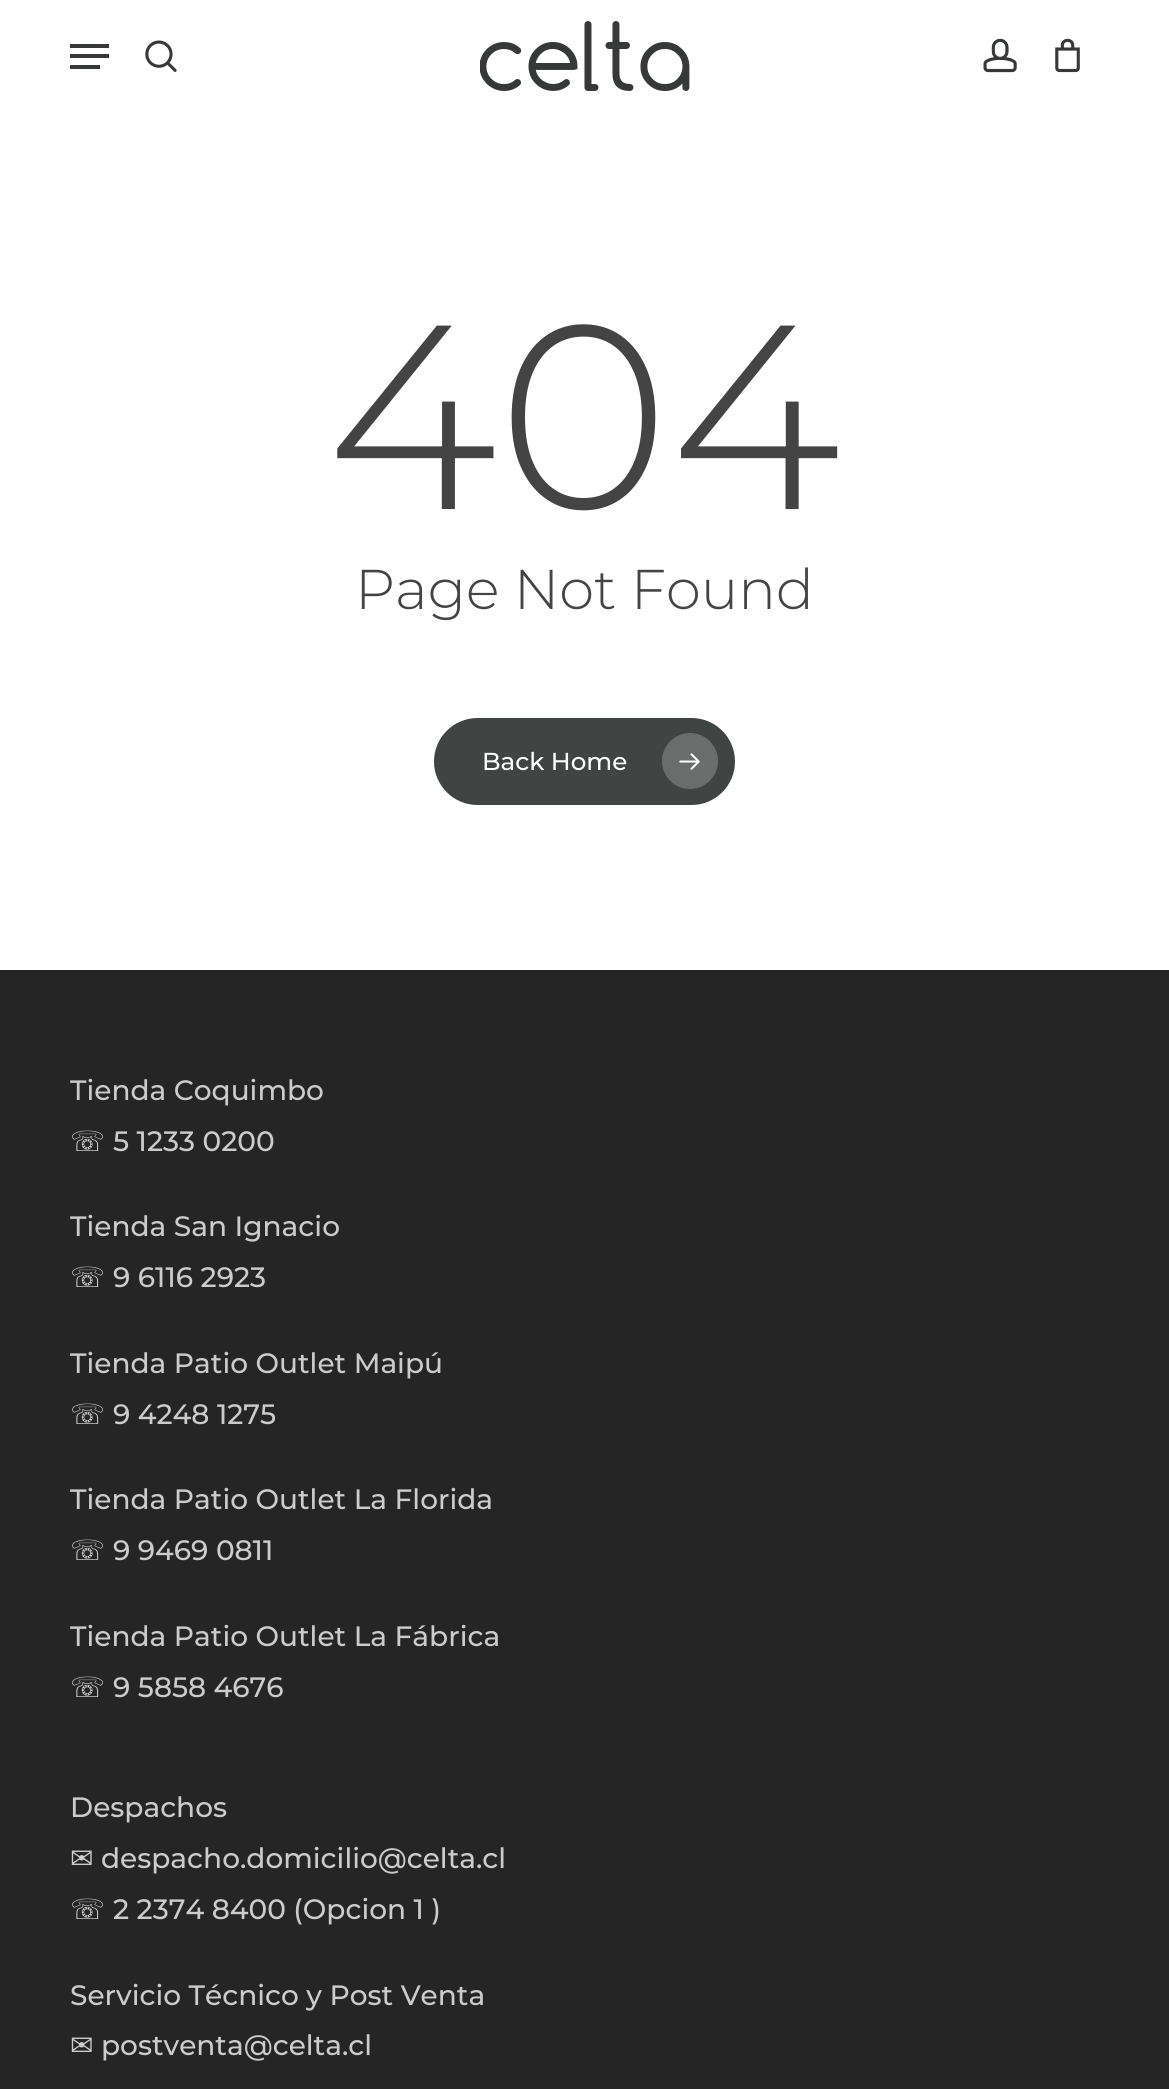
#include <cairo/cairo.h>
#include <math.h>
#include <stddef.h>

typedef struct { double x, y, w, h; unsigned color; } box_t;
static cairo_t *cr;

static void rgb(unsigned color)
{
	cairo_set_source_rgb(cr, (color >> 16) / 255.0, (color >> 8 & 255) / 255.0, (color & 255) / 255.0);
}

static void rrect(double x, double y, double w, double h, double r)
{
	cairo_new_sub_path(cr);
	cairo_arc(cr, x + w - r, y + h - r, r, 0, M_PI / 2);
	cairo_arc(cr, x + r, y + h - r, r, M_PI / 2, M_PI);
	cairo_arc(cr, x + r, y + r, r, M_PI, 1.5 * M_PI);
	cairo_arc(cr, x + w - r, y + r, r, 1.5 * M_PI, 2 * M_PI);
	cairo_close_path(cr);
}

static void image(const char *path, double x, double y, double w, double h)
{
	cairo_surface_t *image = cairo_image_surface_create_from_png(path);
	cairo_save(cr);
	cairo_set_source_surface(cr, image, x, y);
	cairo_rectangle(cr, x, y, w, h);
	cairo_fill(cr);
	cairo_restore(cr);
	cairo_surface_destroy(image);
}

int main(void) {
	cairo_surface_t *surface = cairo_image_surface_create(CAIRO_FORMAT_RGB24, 1169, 2089);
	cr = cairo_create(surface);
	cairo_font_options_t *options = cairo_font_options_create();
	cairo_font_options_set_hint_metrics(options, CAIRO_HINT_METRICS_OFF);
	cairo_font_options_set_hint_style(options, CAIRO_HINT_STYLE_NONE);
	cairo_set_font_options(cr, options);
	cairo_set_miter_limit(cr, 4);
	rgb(0xffffff);
	cairo_paint(cr);
	image("img/1.png", 480, 21, 210, 70);
	{
		static const box_t items[] = {
			{70, 44, 39, 4, 0x373938},
			{70, 65, 30, 4, 0x373938},
			{70, 54, 39, 4, 0x373938},
		};
		for (size_t i = 0; i < sizeof items / sizeof *items; i++) {
			rgb(items[i].color);
			cairo_rectangle(cr, items[i].x, items[i].y, items[i].w, items[i].h);
			cairo_fill(cr);
		}
	}
	image("img/2.png", 145, 40, 32, 32);
	image("img/3.png", 983, 38, 34, 35);
	image("img/4.png", 1055, 38, 25, 35);
	rgb(0x404442);
	rrect(434, 718, 301, 87, 43.5);
	cairo_fill(cr);
	rgb(0x6a6d6c);
	cairo_arc(cr, 690, 761, 28, 0, 2 * M_PI);
	cairo_fill(cr);
	image("img/5.png", 679, 753, 21, 17);
	rgb(0x252525);
	cairo_rectangle(cr, 0, 970, 1169, 1119);
	cairo_fill(cr);
	cairo_select_font_face(cr, "Montserrat Light", CAIRO_FONT_SLANT_NORMAL, CAIRO_FONT_WEIGHT_NORMAL);
	cairo_set_font_size(cr, 262);
	rgb(0x444444);
	cairo_move_to(cr, 326, 509);
	cairo_show_text(cr, "404");
	cairo_set_font_size(cr, 56);
	cairo_move_to(cr, 355, 609);
	cairo_show_text(cr, "Page Not Found");
	cairo_select_font_face(cr, "Montserrat Medium", CAIRO_FONT_SLANT_NORMAL, CAIRO_FONT_WEIGHT_NORMAL);
	cairo_set_font_size(cr, 24.5);
	rgb(0xffffff);
	cairo_move_to(cr, 482, 770);
	cairo_show_text(cr, "Back Home");
	cairo_set_font_size(cr, 28);
	rgb(0xcccccc);
	cairo_move_to(cr, 70, 1100);
	cairo_show_text(cr, "Tienda Coquimbo");
	cairo_select_font_face(cr, "DejaVu Sans", CAIRO_FONT_SLANT_NORMAL, CAIRO_FONT_WEIGHT_NORMAL);
	cairo_move_to(cr, 70, 1151);
	cairo_show_text(cr, "☏");
	cairo_select_font_face(cr, "Montserrat Medium", CAIRO_FONT_SLANT_NORMAL, CAIRO_FONT_WEIGHT_NORMAL);
	cairo_move_to(cr, 113, 1151);
	cairo_show_text(cr, "5 1233 0200");
	cairo_move_to(cr, 70, 1236);
	cairo_show_text(cr, "Tienda San Ignacio");
	cairo_select_font_face(cr, "DejaVu Sans", CAIRO_FONT_SLANT_NORMAL, CAIRO_FONT_WEIGHT_NORMAL);
	cairo_move_to(cr, 70, 1287);
	cairo_show_text(cr, "☏");
	cairo_select_font_face(cr, "Montserrat Medium", CAIRO_FONT_SLANT_NORMAL, CAIRO_FONT_WEIGHT_NORMAL);
	cairo_move_to(cr, 113, 1287);
	cairo_show_text(cr, "9 6116 2923");
	cairo_move_to(cr, 70, 1373);
	cairo_show_text(cr, "Tienda Patio Outlet Maipú");
	cairo_select_font_face(cr, "DejaVu Sans", CAIRO_FONT_SLANT_NORMAL, CAIRO_FONT_WEIGHT_NORMAL);
	cairo_move_to(cr, 70, 1424);
	cairo_show_text(cr, "☏");
	cairo_select_font_face(cr, "Montserrat Medium", CAIRO_FONT_SLANT_NORMAL, CAIRO_FONT_WEIGHT_NORMAL);
	cairo_move_to(cr, 113, 1424);
	cairo_show_text(cr, "9 4248 1275");
	cairo_move_to(cr, 70, 1509);
	cairo_show_text(cr, "Tienda Patio Outlet La Florida");
	cairo_select_font_face(cr, "DejaVu Sans", CAIRO_FONT_SLANT_NORMAL, CAIRO_FONT_WEIGHT_NORMAL);
	cairo_move_to(cr, 70, 1560);
	cairo_show_text(cr, "☏");
	cairo_select_font_face(cr, "Montserrat Medium", CAIRO_FONT_SLANT_NORMAL, CAIRO_FONT_WEIGHT_NORMAL);
	cairo_move_to(cr, 113, 1560);
	cairo_show_text(cr, "9 9469 0811");
	cairo_move_to(cr, 70, 1646);
	cairo_show_text(cr, "Tienda Patio Outlet La Fábrica");
	cairo_select_font_face(cr, "DejaVu Sans", CAIRO_FONT_SLANT_NORMAL, CAIRO_FONT_WEIGHT_NORMAL);
	cairo_move_to(cr, 70, 1697);
	cairo_show_text(cr, "☏");
	cairo_select_font_face(cr, "Montserrat Medium", CAIRO_FONT_SLANT_NORMAL, CAIRO_FONT_WEIGHT_NORMAL);
	cairo_move_to(cr, 113, 1697);
	cairo_show_text(cr, "9 5858 4676");
	cairo_move_to(cr, 70, 1817);
	cairo_show_text(cr, "Despachos");
	cairo_select_font_face(cr, "DejaVu Sans", CAIRO_FONT_SLANT_NORMAL, CAIRO_FONT_WEIGHT_NORMAL);
	cairo_move_to(cr, 70, 1868);
	cairo_show_text(cr, "✉");
	cairo_select_font_face(cr, "Montserrat Medium", CAIRO_FONT_SLANT_NORMAL, CAIRO_FONT_WEIGHT_NORMAL);
	cairo_move_to(cr, 101, 1868);
	cairo_show_text(cr, "despacho.domicilio@celta.cl");
	cairo_select_font_face(cr, "DejaVu Sans", CAIRO_FONT_SLANT_NORMAL, CAIRO_FONT_WEIGHT_NORMAL);
	cairo_move_to(cr, 70, 1919);
	cairo_show_text(cr, "☏");
	cairo_select_font_face(cr, "Montserrat Medium", CAIRO_FONT_SLANT_NORMAL, CAIRO_FONT_WEIGHT_NORMAL);
	cairo_move_to(cr, 113, 1919);
	cairo_show_text(cr, "2 2374 8400 (Opcion 1 )");
	cairo_move_to(cr, 70, 2005);
	cairo_show_text(cr, "Servicio Técnico y Post Venta");
	cairo_select_font_face(cr, "DejaVu Sans", CAIRO_FONT_SLANT_NORMAL, CAIRO_FONT_WEIGHT_NORMAL);
	cairo_move_to(cr, 70, 2055);
	cairo_show_text(cr, "✉");
	cairo_select_font_face(cr, "Montserrat Medium", CAIRO_FONT_SLANT_NORMAL, CAIRO_FONT_WEIGHT_NORMAL);
	cairo_move_to(cr, 101, 2055);
	cairo_show_text(cr, "postventa@celta.cl");
	cairo_surface_write_to_png(surface, "page.png");
	cairo_font_options_destroy(options);
	cairo_destroy(cr);
	cairo_surface_destroy(surface);
	return 0;
}
